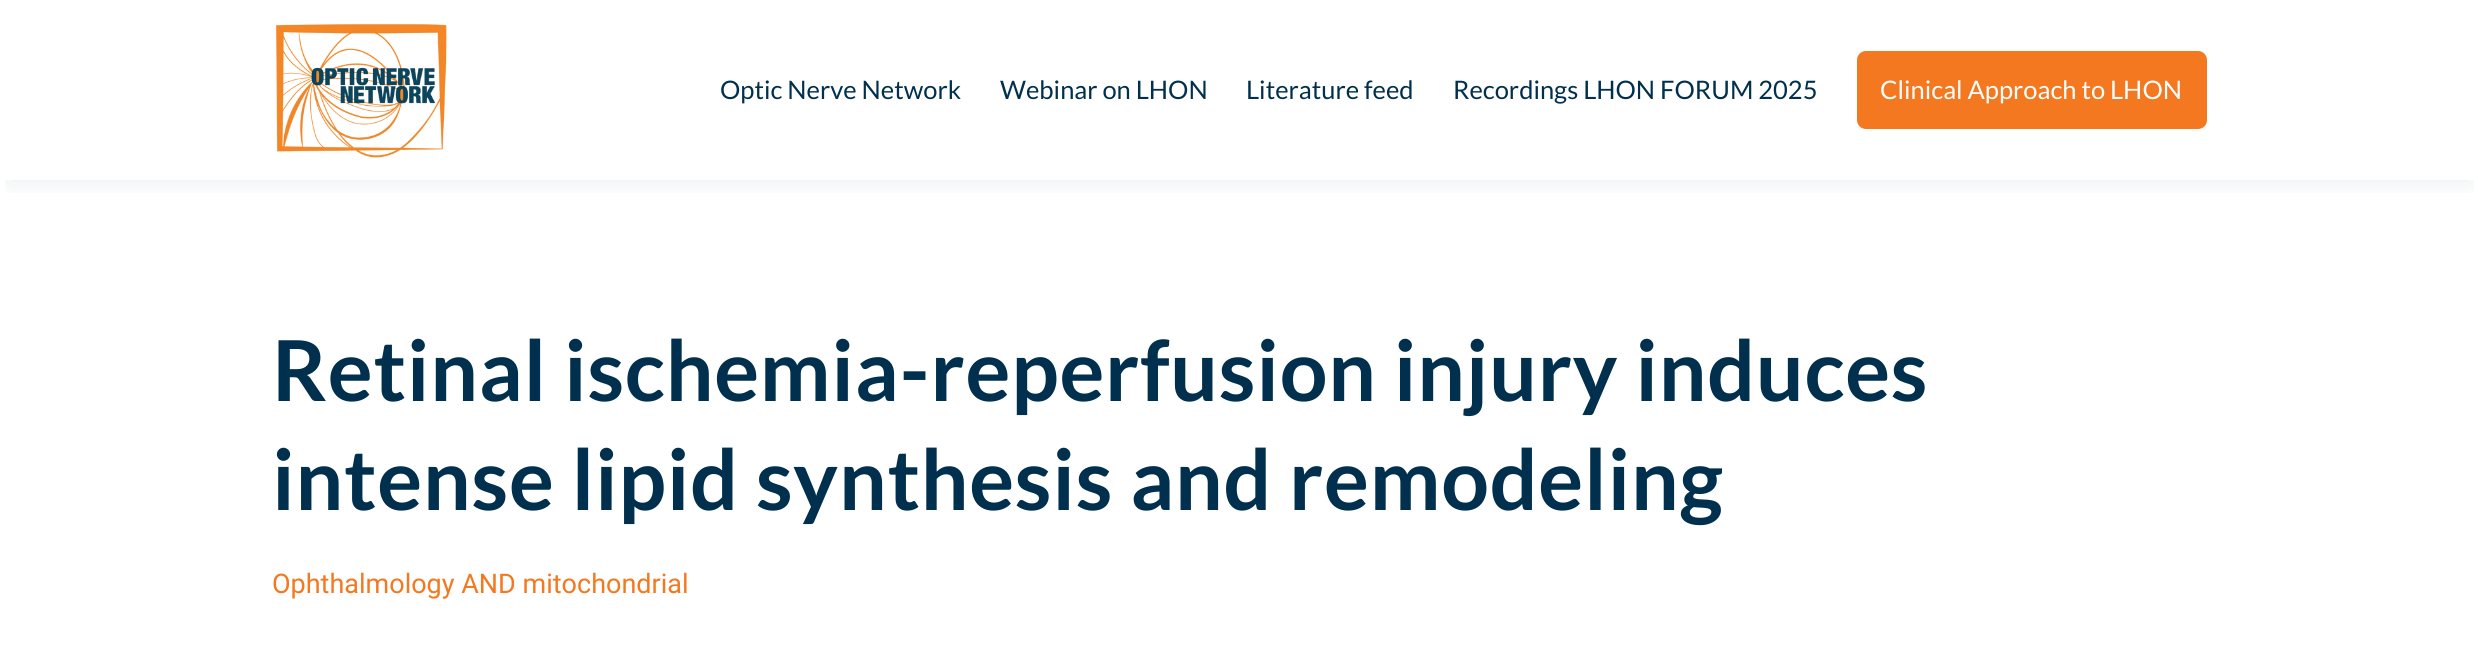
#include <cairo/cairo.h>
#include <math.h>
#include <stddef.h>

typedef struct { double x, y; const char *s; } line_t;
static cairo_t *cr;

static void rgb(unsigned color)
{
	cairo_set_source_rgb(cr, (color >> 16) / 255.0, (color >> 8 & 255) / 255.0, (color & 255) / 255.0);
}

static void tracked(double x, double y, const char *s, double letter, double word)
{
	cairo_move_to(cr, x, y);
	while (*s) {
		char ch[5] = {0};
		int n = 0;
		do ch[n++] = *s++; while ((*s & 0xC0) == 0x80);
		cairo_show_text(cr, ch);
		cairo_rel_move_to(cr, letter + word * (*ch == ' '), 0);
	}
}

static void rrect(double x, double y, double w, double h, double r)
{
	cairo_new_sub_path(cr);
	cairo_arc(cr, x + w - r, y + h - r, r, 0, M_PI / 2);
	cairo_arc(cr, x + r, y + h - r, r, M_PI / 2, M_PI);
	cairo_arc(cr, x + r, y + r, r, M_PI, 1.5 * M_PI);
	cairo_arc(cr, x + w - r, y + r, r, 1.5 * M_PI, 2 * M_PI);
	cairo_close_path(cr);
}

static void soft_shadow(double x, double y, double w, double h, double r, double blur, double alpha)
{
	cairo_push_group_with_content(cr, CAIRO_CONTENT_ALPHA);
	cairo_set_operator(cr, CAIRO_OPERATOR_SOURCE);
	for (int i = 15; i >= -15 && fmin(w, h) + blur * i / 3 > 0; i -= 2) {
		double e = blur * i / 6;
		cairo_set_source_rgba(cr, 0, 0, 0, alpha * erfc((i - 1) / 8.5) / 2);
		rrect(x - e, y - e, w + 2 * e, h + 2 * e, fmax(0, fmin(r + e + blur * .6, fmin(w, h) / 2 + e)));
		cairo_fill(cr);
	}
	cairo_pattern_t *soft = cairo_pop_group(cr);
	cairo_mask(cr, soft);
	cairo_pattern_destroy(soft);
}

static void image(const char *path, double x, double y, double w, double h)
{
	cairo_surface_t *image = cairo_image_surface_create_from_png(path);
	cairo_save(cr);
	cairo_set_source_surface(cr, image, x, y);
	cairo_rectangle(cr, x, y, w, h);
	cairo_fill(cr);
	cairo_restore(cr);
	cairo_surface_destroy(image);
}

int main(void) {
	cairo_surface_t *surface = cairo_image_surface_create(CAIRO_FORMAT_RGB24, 2478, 654);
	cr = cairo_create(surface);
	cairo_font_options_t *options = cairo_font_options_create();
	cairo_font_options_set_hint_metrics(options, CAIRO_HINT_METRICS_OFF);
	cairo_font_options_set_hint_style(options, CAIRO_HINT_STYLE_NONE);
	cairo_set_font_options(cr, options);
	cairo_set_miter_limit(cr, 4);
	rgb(0xffffff);
	cairo_paint(cr);
	cairo_save(cr);
	cairo_rectangle(cr, 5, 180, 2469, 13);
	cairo_clip(cr);
	rgb(0x153041);
	soft_shadow(8, 15, 2463, 165, 0, 15, 0.1);
	cairo_restore(cr);
	image("img/1.png", 276, 24, 171, 134);
	rgb(0xf47820);
	rrect(1857, 51, 350, 78, 9);
	cairo_fill(cr);
	cairo_select_font_face(cr, "Lato", CAIRO_FONT_SLANT_NORMAL, CAIRO_FONT_WEIGHT_NORMAL);
	cairo_set_font_size(cr, 25.5);
	rgb(0x00304d);
	{
		static const line_t items[] = {
			{720, 99, "Optic Nerve Network"},
			{1000, 99, "Webinar on LHON"},
			{1246, 99, "Literature feed"},
			{1453, 99, "Recordings LHON FORUM 2025"},
		};
		for (size_t i = 0; i < sizeof items / sizeof *items; i++) {
			cairo_move_to(cr, items[i].x, items[i].y);
			cairo_show_text(cr, items[i].s);
		}
	}
	rgb(0xffffff);
	cairo_move_to(cr, 1880, 99);
	cairo_show_text(cr, "Clinical Approach to LHON");
	cairo_select_font_face(cr, "Lato", CAIRO_FONT_SLANT_NORMAL, CAIRO_FONT_WEIGHT_BOLD);
	cairo_set_font_size(cr, 84);
	rgb(0x00304d);
	tracked(272, 401, "Retinal ischemia-reperfusion injury induces", 0.75, 0);
	tracked(272, 510, "intense lipid synthesis and remodeling", 0.75, 0);
	cairo_select_font_face(cr, "Roboto", CAIRO_FONT_SLANT_NORMAL, CAIRO_FONT_WEIGHT_NORMAL);
	cairo_set_font_size(cr, 27);
	rgb(0xf47820);
	cairo_move_to(cr, 272, 593);
	cairo_show_text(cr, "Ophthalmology AND mitochondrial");
	cairo_surface_write_to_png(surface, "page.png");
	cairo_font_options_destroy(options);
	cairo_destroy(cr);
	cairo_surface_destroy(surface);
	return 0;
}
